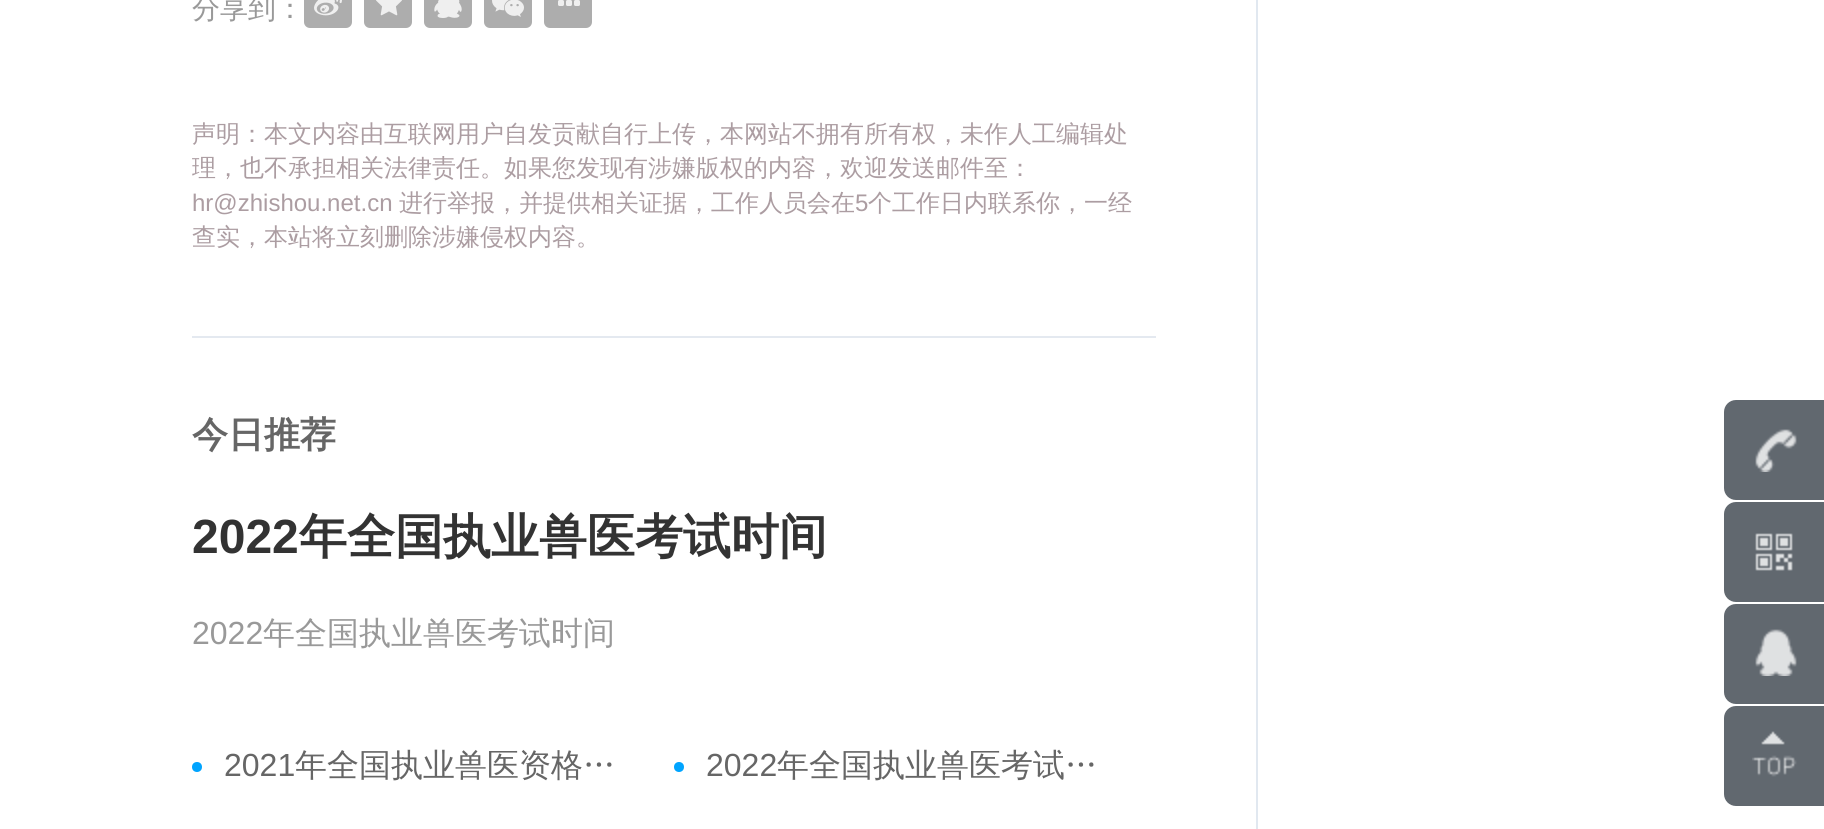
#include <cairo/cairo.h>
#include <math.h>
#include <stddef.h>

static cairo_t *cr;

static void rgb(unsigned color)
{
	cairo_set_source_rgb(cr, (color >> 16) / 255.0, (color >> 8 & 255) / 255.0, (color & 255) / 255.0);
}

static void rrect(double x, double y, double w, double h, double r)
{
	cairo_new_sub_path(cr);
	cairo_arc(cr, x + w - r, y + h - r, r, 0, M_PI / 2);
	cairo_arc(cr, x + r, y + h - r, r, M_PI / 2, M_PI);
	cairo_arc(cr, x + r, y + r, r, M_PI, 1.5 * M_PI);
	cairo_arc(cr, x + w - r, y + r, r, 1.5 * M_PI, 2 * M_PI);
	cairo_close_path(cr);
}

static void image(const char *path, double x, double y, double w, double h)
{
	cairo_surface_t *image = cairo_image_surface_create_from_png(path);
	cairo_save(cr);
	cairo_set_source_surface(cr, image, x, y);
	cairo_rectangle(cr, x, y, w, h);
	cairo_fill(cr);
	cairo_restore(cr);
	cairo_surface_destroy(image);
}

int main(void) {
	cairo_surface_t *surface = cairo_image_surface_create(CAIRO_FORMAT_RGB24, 1824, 829);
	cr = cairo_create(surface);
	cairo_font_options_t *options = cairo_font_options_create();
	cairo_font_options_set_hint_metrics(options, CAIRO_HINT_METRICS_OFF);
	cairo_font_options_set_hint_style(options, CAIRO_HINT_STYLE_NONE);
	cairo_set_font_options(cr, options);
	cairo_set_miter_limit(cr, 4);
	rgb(0xffffff);
	cairo_paint(cr);
	rgb(0xe1e8f0);
	cairo_rectangle(cr, 1256, 0, 2, 829);
	cairo_fill(cr);
	rgb(0xadadad);
	rrect(304, -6, 48, 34, 6);
	cairo_fill(cr);
	image("img/1.png", 314, 0, 28, 16);
	rrect(364, -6, 48, 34, 6);
	cairo_fill(cr);
	image("img/2.png", 376, 0, 26, 16);
	rrect(424, -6, 48, 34, 6);
	cairo_fill(cr);
	image("img/3.png", 434, 0, 28, 18);
	rrect(484, -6, 48, 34, 6);
	cairo_fill(cr);
	image("img/4.png", 492, 0, 32, 17);
	rrect(544, -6, 48, 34, 6);
	cairo_fill(cr);
	image("img/5.png", 558, 0, 22, 6);
	rgb(0xe4e9f0);
	cairo_rectangle(cr, 192, 336, 964, 2);
	cairo_fill(cr);
	rgb(0x00a4ff);
	cairo_arc(cr, 197, 767, 5, 0, 2 * M_PI);
	cairo_fill(cr);
	cairo_arc(cr, 679, 767, 5, 0, 2 * M_PI);
	cairo_fill(cr);
	rgb(0x61686f);
	rrect(1724, 400, 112, 100, 12);
	cairo_fill(cr);
	image("img/6.png", 1755, 429, 42, 43);
	rrect(1724, 502, 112, 100, 12);
	cairo_fill(cr);
	image("img/7.png", 1755, 533, 38, 38);
	rrect(1724, 604, 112, 100, 12);
	cairo_fill(cr);
	image("img/8.png", 1755, 629, 42, 47);
	rrect(1724, 706, 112, 100, 12);
	cairo_fill(cr);
	image("img/9.png", 1752, 731, 45, 46);
	cairo_select_font_face(cr, "WenQuanYi Zen Hei Medium", CAIRO_FONT_SLANT_NORMAL, CAIRO_FONT_WEIGHT_NORMAL);
	cairo_set_font_size(cr, 28);
	rgb(0x999999);
	cairo_move_to(cr, 192, 18);
	cairo_show_text(cr, "分享到：");
	cairo_set_font_size(cr, 24);
	rgb(0xac9da2);
	cairo_move_to(cr, 192, 142);
	cairo_show_text(cr, "声明：本文内容由互联网用户自发贡献自行上传，本网站不拥有所有权，未作人工编辑处");
	cairo_move_to(cr, 192, 176);
	cairo_show_text(cr, "理，也不承担相关法律责任。如果您发现有涉嫌版权的内容，欢迎发送邮件至：");
	cairo_select_font_face(cr, "Liberation Sans", CAIRO_FONT_SLANT_NORMAL, CAIRO_FONT_WEIGHT_NORMAL);
	cairo_move_to(cr, 192, 211);
	cairo_show_text(cr, "hr@zhishou.net.cn");
	cairo_select_font_face(cr, "WenQuanYi Zen Hei Medium", CAIRO_FONT_SLANT_NORMAL, CAIRO_FONT_WEIGHT_NORMAL);
	cairo_move_to(cr, 399, 211);
	cairo_show_text(cr, "进行举报，并提供相关证据，工作人员会在");
	cairo_select_font_face(cr, "Liberation Sans", CAIRO_FONT_SLANT_NORMAL, CAIRO_FONT_WEIGHT_NORMAL);
	cairo_move_to(cr, 855, 211);
	cairo_show_text(cr, "5");
	cairo_select_font_face(cr, "WenQuanYi Zen Hei Medium", CAIRO_FONT_SLANT_NORMAL, CAIRO_FONT_WEIGHT_NORMAL);
	cairo_move_to(cr, 868, 211);
	cairo_show_text(cr, "个工作日内联系你，一经");
	cairo_move_to(cr, 192, 245);
	cairo_show_text(cr, "查实，本站将立刻删除涉嫌侵权内容。");
	cairo_select_font_face(cr, "WenQuanYi Zen Hei", CAIRO_FONT_SLANT_NORMAL, CAIRO_FONT_WEIGHT_BOLD);
	cairo_set_font_size(cr, 36);
	rgb(0x666666);
	cairo_move_to(cr, 192, 447);
	cairo_show_text(cr, "今日推荐");
	cairo_select_font_face(cr, "Liberation Sans", CAIRO_FONT_SLANT_NORMAL, CAIRO_FONT_WEIGHT_BOLD);
	cairo_set_font_size(cr, 48);
	rgb(0x333333);
	cairo_move_to(cr, 192, 553);
	cairo_show_text(cr, "2022");
	cairo_select_font_face(cr, "WenQuanYi Zen Hei", CAIRO_FONT_SLANT_NORMAL, CAIRO_FONT_WEIGHT_BOLD);
	cairo_move_to(cr, 299, 553);
	cairo_show_text(cr, "年全国执业兽医考试时间");
	cairo_select_font_face(cr, "Liberation Sans", CAIRO_FONT_SLANT_NORMAL, CAIRO_FONT_WEIGHT_NORMAL);
	cairo_set_font_size(cr, 32);
	rgb(0x999999);
	cairo_move_to(cr, 192, 644);
	cairo_show_text(cr, "2022");
	cairo_select_font_face(cr, "WenQuanYi Zen Hei Medium", CAIRO_FONT_SLANT_NORMAL, CAIRO_FONT_WEIGHT_NORMAL);
	cairo_move_to(cr, 263, 644);
	cairo_show_text(cr, "年全国执业兽医考试时间");
	cairo_select_font_face(cr, "Liberation Sans", CAIRO_FONT_SLANT_NORMAL, CAIRO_FONT_WEIGHT_NORMAL);
	rgb(0x666666);
	cairo_move_to(cr, 224, 776);
	cairo_show_text(cr, "2021");
	cairo_select_font_face(cr, "WenQuanYi Zen Hei Medium", CAIRO_FONT_SLANT_NORMAL, CAIRO_FONT_WEIGHT_NORMAL);
	cairo_move_to(cr, 295, 776);
	cairo_show_text(cr, "年全国执业兽医资格…");
	cairo_select_font_face(cr, "Liberation Sans", CAIRO_FONT_SLANT_NORMAL, CAIRO_FONT_WEIGHT_NORMAL);
	cairo_move_to(cr, 706, 776);
	cairo_show_text(cr, "2022");
	cairo_select_font_face(cr, "WenQuanYi Zen Hei Medium", CAIRO_FONT_SLANT_NORMAL, CAIRO_FONT_WEIGHT_NORMAL);
	cairo_move_to(cr, 777, 776);
	cairo_show_text(cr, "年全国执业兽医考试…");
	cairo_surface_write_to_png(surface, "page.png");
	cairo_font_options_destroy(options);
	cairo_destroy(cr);
	cairo_surface_destroy(surface);
	return 0;
}
